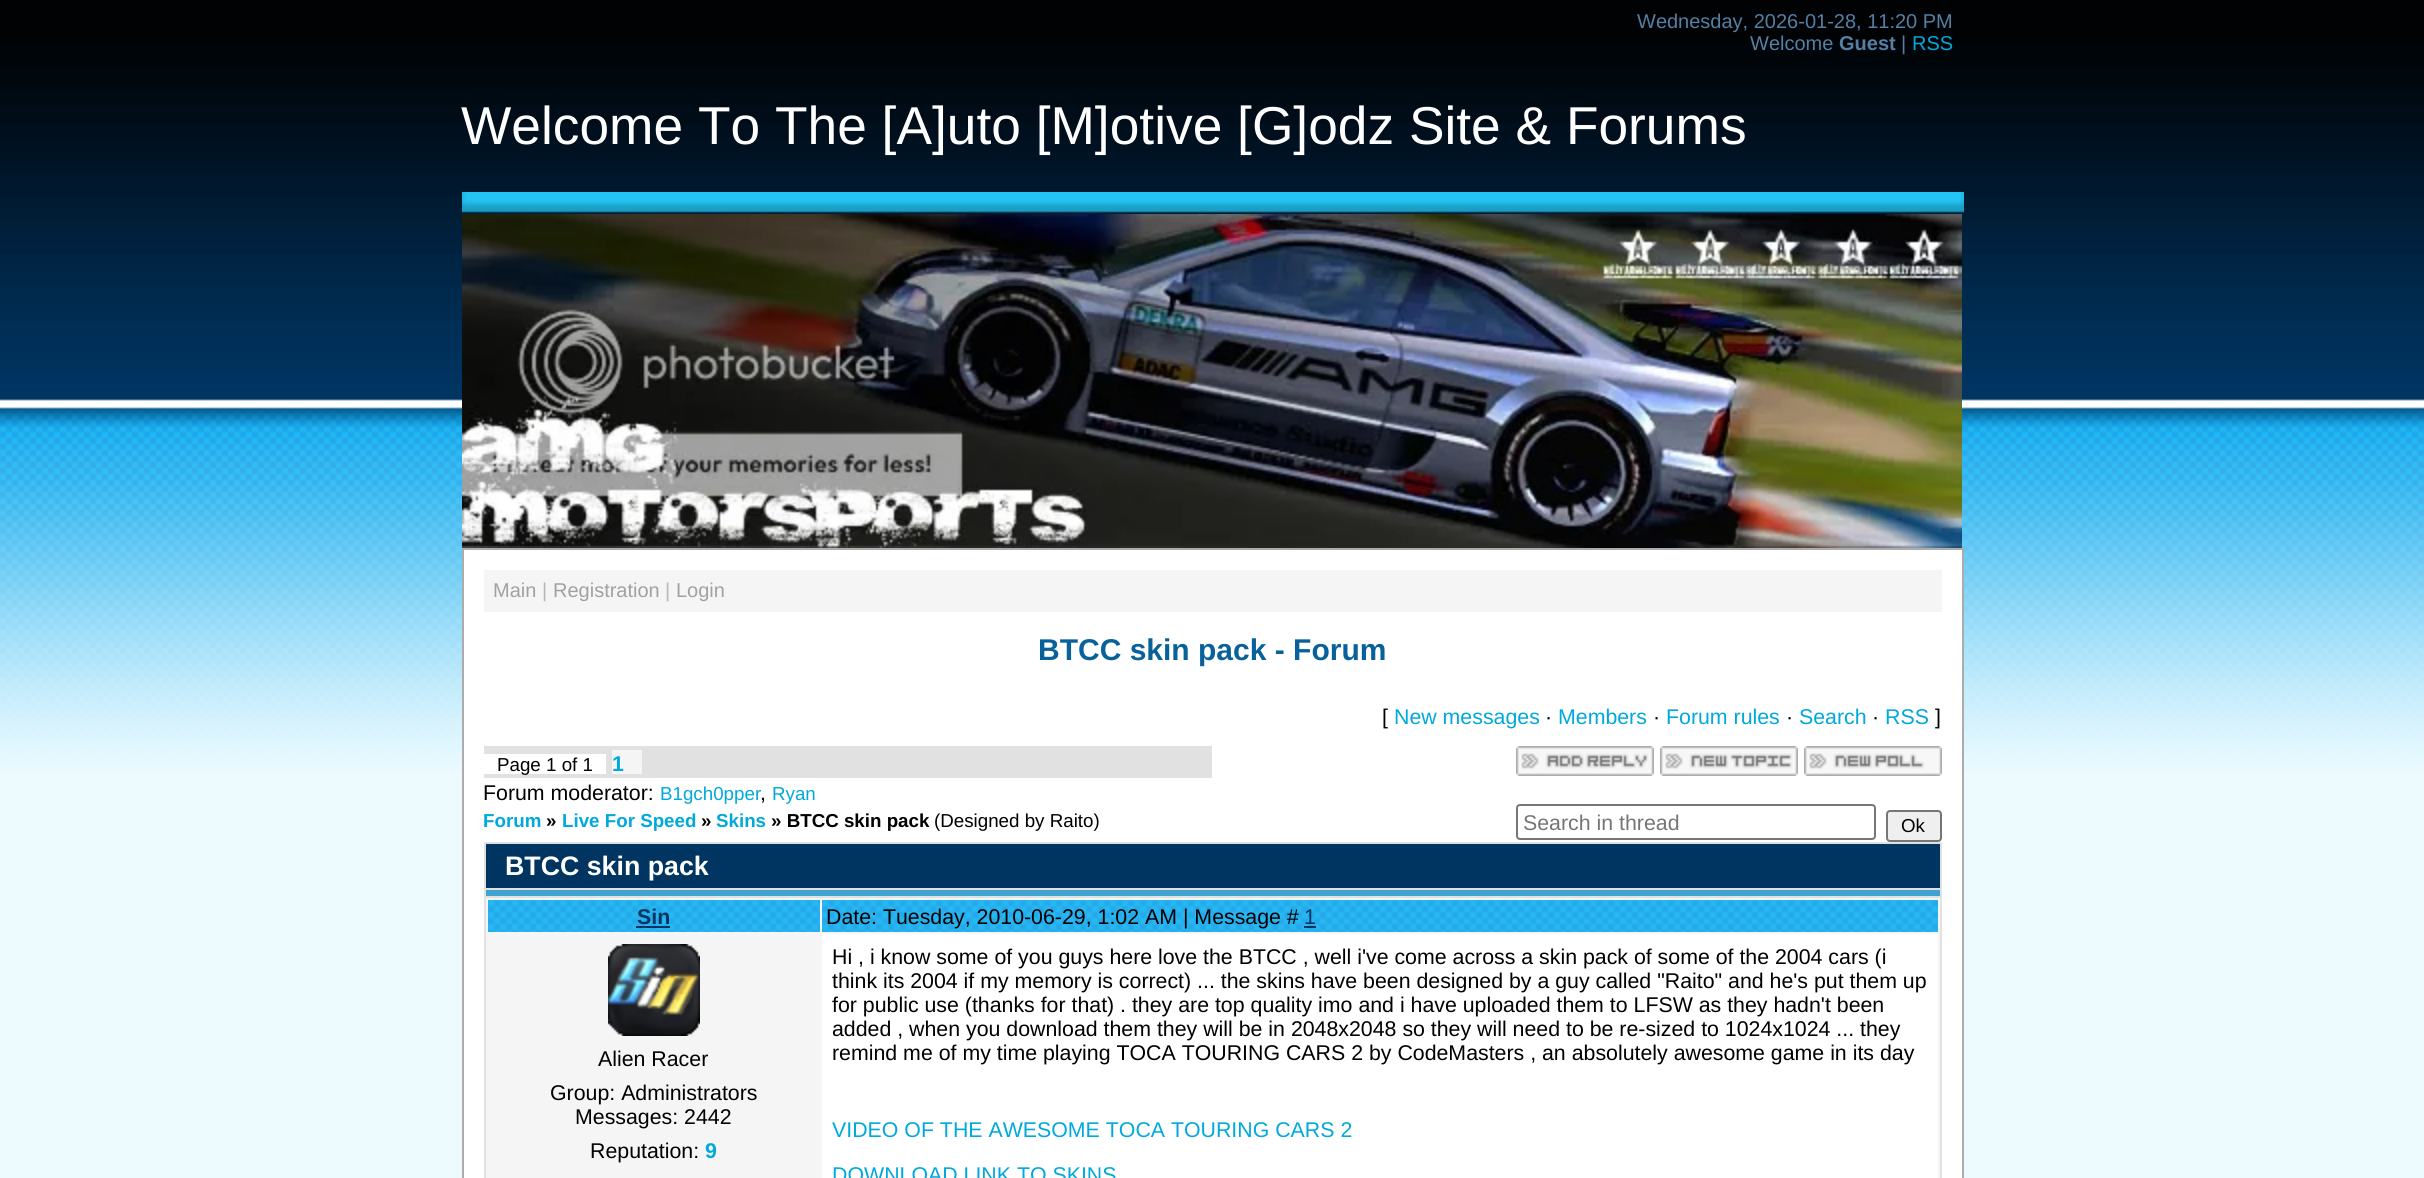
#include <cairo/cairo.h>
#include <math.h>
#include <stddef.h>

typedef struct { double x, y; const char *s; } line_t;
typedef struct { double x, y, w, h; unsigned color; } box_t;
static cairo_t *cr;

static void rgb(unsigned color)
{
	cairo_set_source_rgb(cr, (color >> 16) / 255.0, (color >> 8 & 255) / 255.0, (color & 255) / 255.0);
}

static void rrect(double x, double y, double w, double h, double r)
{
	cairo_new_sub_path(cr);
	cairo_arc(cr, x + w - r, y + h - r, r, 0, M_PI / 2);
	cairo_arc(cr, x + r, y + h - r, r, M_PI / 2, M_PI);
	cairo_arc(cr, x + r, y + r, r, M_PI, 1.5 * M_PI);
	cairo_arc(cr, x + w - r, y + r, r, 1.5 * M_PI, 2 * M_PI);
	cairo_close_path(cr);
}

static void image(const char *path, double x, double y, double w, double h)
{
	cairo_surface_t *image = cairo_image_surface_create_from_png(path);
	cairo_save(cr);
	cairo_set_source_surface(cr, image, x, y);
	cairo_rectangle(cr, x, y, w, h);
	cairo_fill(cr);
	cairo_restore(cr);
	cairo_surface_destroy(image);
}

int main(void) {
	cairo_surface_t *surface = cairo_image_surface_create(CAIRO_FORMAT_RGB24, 2424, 1178);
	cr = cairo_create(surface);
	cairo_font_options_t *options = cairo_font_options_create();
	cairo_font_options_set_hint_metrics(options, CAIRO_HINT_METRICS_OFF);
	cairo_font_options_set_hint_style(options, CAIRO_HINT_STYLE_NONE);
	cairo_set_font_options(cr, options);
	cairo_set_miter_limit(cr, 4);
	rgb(0xedfbff);
	cairo_paint(cr);
	image("img/1.png", 0, 0, 2424, 771);
	image("img/2.png", 462, 192, 1502, 21);
	image("img/3.png", 462, 214, 1500, 334);
	rgb(0xffffff);
	cairo_rectangle(cr, 463, 549, 1500, 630);
	cairo_fill_preserve(cr);
	rgb(0xacacac);
	cairo_stroke(cr);
	{
		static const box_t items[] = {
			{484, 570, 1458, 42, 0xf5f5f5},
			{484, 746, 728, 32, 0xe1e1e1},
			{484, 754, 122, 20, 0xffffff},
			{612, 750, 30, 24, 0xf5f5f5},
		};
		for (size_t i = 0; i < sizeof items / sizeof *items; i++) {
			rgb(items[i].color);
			cairo_rectangle(cr, items[i].x, items[i].y, items[i].w, items[i].h);
			cairo_fill(cr);
		}
	}
	image("img/4.png", 1516, 746, 138, 30);
	image("img/5.png", 1660, 746, 138, 30);
	image("img/6.png", 1804, 746, 138, 30);
	rrect(1517, 805, 358, 34, 3);
	rgb(0x767676);
	cairo_stroke(cr);
	rgb(0xefefef);
	rrect(1887, 811, 54, 30, 3);
	cairo_fill_preserve(cr);
	rgb(0x767676);
	cairo_stroke(cr);
	{
		static const box_t items[] = {
			{484, 842, 1458, 336, 0xe1e1e1},
			{486, 844, 1454, 44, 0x003562},
			{486, 890, 1454, 6, 0x40a3cf},
			{486, 898, 1454, 280, 0xf5f5f5},
		};
		for (size_t i = 0; i < sizeof items / sizeof *items; i++) {
			rgb(items[i].color);
			cairo_rectangle(cr, items[i].x, items[i].y, items[i].w, items[i].h);
			cairo_fill(cr);
		}
	}
	image("img/7.png", 488, 900, 332, 32);
	rgb(0x003462);
	cairo_rectangle(cr, 636, 926, 34, 2);
	cairo_fill(cr);
	image("img/8.png", 822, 900, 1116, 32);
	cairo_rectangle(cr, 1304, 926, 12, 2);
	cairo_fill(cr);
	image("img/9.png", 608, 944, 92, 92);
	rgb(0xffffff);
	cairo_rectangle(cr, 822, 934, 1116, 244);
	cairo_fill(cr);
	cairo_select_font_face(cr, "Liberation Sans", CAIRO_FONT_SLANT_NORMAL, CAIRO_FONT_WEIGHT_NORMAL);
	cairo_set_font_size(cr, 20);
	rgb(0x557fa3);
	cairo_move_to(cr, 1637, 28);
	cairo_show_text(cr, "Wednesday, 2026-01-28, 11:20 PM");
	cairo_move_to(cr, 1750, 50);
	cairo_show_text(cr, "Welcome");
	cairo_select_font_face(cr, "Liberation Sans", CAIRO_FONT_SLANT_NORMAL, CAIRO_FONT_WEIGHT_BOLD);
	cairo_move_to(cr, 1839, 50);
	cairo_show_text(cr, "Guest");
	cairo_select_font_face(cr, "Liberation Sans", CAIRO_FONT_SLANT_NORMAL, CAIRO_FONT_WEIGHT_NORMAL);
	cairo_move_to(cr, 1901, 50);
	cairo_show_text(cr, "|");
	rgb(0x00a9db);
	cairo_move_to(cr, 1912, 50);
	cairo_show_text(cr, "RSS");
	cairo_set_font_size(cr, 53.3);
	rgb(0xffffff);
	cairo_move_to(cr, 461, 144);
	cairo_show_text(cr, "Welcome To The [A]uto [M]otive [G]odz Site & Forums");
	cairo_set_font_size(cr, 20);
	rgb(0xa1a1a1);
	cairo_move_to(cr, 493, 597);
	cairo_show_text(cr, "Main");
	rgb(0xb7b7b7);
	cairo_move_to(cr, 542, 597);
	cairo_show_text(cr, "|");
	rgb(0xa1a1a1);
	cairo_move_to(cr, 553, 597);
	cairo_show_text(cr, "Registration");
	rgb(0xb7b7b7);
	cairo_move_to(cr, 665, 597);
	cairo_show_text(cr, "|");
	rgb(0xa1a1a1);
	cairo_move_to(cr, 676, 597);
	cairo_show_text(cr, "Login");
	cairo_select_font_face(cr, "Liberation Sans", CAIRO_FONT_SLANT_NORMAL, CAIRO_FONT_WEIGHT_BOLD);
	cairo_set_font_size(cr, 30);
	rgb(0x08619a);
	cairo_move_to(cr, 1038, 660);
	cairo_show_text(cr, "BTCC skin pack - Forum");
	cairo_select_font_face(cr, "Liberation Sans", CAIRO_FONT_SLANT_NORMAL, CAIRO_FONT_WEIGHT_NORMAL);
	cairo_set_font_size(cr, 21.33);
	rgb(0x000000);
	cairo_move_to(cr, 1382, 724);
	cairo_show_text(cr, "[");
	rgb(0x00a9db);
	cairo_move_to(cr, 1394, 724);
	cairo_show_text(cr, "New messages");
	rgb(0x000000);
	cairo_move_to(cr, 1545, 724);
	cairo_show_text(cr, "·");
	rgb(0x00a9db);
	cairo_move_to(cr, 1558, 724);
	cairo_show_text(cr, "Members");
	rgb(0x000000);
	cairo_move_to(cr, 1653, 724);
	cairo_show_text(cr, "·");
	rgb(0x00a9db);
	cairo_move_to(cr, 1666, 724);
	cairo_show_text(cr, "Forum rules");
	rgb(0x000000);
	cairo_move_to(cr, 1786, 724);
	cairo_show_text(cr, "·");
	rgb(0x00a9db);
	cairo_move_to(cr, 1799, 724);
	cairo_show_text(cr, "Search");
	rgb(0x000000);
	cairo_move_to(cr, 1872, 724);
	cairo_show_text(cr, "·");
	rgb(0x00a9db);
	cairo_move_to(cr, 1885, 724);
	cairo_show_text(cr, "RSS");
	rgb(0x000000);
	cairo_move_to(cr, 1935, 724);
	cairo_show_text(cr, "]");
	cairo_set_font_size(cr, 18.75);
	cairo_move_to(cr, 497, 771);
	cairo_show_text(cr, "Page 1 of 1");
	cairo_select_font_face(cr, "Liberation Sans", CAIRO_FONT_SLANT_NORMAL, CAIRO_FONT_WEIGHT_BOLD);
	cairo_set_font_size(cr, 21.33);
	rgb(0x00a9db);
	cairo_move_to(cr, 612, 771);
	cairo_show_text(cr, "1");
	cairo_select_font_face(cr, "Liberation Sans", CAIRO_FONT_SLANT_NORMAL, CAIRO_FONT_WEIGHT_NORMAL);
	rgb(0x000000);
	cairo_move_to(cr, 483, 800);
	cairo_show_text(cr, "Forum moderator:");
	cairo_set_font_size(cr, 18.75);
	rgb(0x00a9db);
	cairo_move_to(cr, 660, 800);
	cairo_show_text(cr, "B1gch0pper");
	cairo_set_font_size(cr, 21.33);
	rgb(0x000000);
	cairo_move_to(cr, 760, 800);
	cairo_show_text(cr, ",");
	cairo_set_font_size(cr, 18.75);
	rgb(0x00a9db);
	cairo_move_to(cr, 772, 800);
	cairo_show_text(cr, "Ryan");
	cairo_select_font_face(cr, "Liberation Sans", CAIRO_FONT_SLANT_NORMAL, CAIRO_FONT_WEIGHT_BOLD);
	cairo_move_to(cr, 483, 827);
	cairo_show_text(cr, "Forum");
	rgb(0x000000);
	cairo_move_to(cr, 546, 827);
	cairo_show_text(cr, "»");
	rgb(0x00a9db);
	cairo_move_to(cr, 562, 827);
	cairo_show_text(cr, "Live For Speed");
	rgb(0x000000);
	cairo_move_to(cr, 701, 827);
	cairo_show_text(cr, "»");
	rgb(0x00a9db);
	cairo_move_to(cr, 716, 827);
	cairo_show_text(cr, "Skins");
	rgb(0x000000);
	cairo_move_to(cr, 771, 827);
	cairo_show_text(cr, "» BTCC skin pack");
	cairo_select_font_face(cr, "Liberation Sans", CAIRO_FONT_SLANT_NORMAL, CAIRO_FONT_WEIGHT_NORMAL);
	cairo_move_to(cr, 934, 827);
	cairo_show_text(cr, "(Designed by Raito)");
	cairo_set_font_size(cr, 21.33);
	rgb(0x757575);
	cairo_move_to(cr, 1523, 830);
	cairo_show_text(cr, "Search in thread");
	cairo_set_font_size(cr, 18.75);
	rgb(0x000000);
	cairo_move_to(cr, 1901, 832);
	cairo_show_text(cr, "Ok");
	cairo_select_font_face(cr, "Liberation Sans", CAIRO_FONT_SLANT_NORMAL, CAIRO_FONT_WEIGHT_BOLD);
	cairo_set_font_size(cr, 26.75);
	rgb(0xffffff);
	cairo_move_to(cr, 505, 875);
	cairo_show_text(cr, "BTCC skin pack");
	cairo_set_font_size(cr, 21.33);
	rgb(0x003462);
	cairo_move_to(cr, 637, 924);
	cairo_show_text(cr, "Sin");
	cairo_select_font_face(cr, "Liberation Sans", CAIRO_FONT_SLANT_NORMAL, CAIRO_FONT_WEIGHT_NORMAL);
	rgb(0x000000);
	cairo_move_to(cr, 826, 924);
	cairo_show_text(cr, "Date: Tuesday, 2010-06-29, 1:02 AM | Message #");
	rgb(0x003462);
	cairo_move_to(cr, 1304, 924);
	cairo_show_text(cr, "1");
	rgb(0x000000);
	{
		static const line_t items[] = {
			{598, 1066, "Alien Racer"},
			{550, 1100, "Group: Administrators"},
			{575, 1124, "Messages: 2442"},
			{590, 1158, "Reputation:"},
		};
		for (size_t i = 0; i < sizeof items / sizeof *items; i++) {
			cairo_move_to(cr, items[i].x, items[i].y);
			cairo_show_text(cr, items[i].s);
		}
	}
	cairo_select_font_face(cr, "Liberation Sans", CAIRO_FONT_SLANT_NORMAL, CAIRO_FONT_WEIGHT_BOLD);
	rgb(0x00a9db);
	cairo_move_to(cr, 705, 1158);
	cairo_show_text(cr, "9");
	cairo_select_font_face(cr, "Liberation Sans", CAIRO_FONT_SLANT_NORMAL, CAIRO_FONT_WEIGHT_NORMAL);
	rgb(0x000000);
	{
		static const line_t items[] = {
			{832, 964, "Hi , i know some of you guys here love the BTCC , well i've come across a skin pack of some of the 2004 cars (i"},
			{832, 988, "think its 2004 if my memory is correct) ... the skins have been designed by a guy called \"Raito\" and he's put them up"},
			{832, 1012, "for public use (thanks for that) . they are top quality imo and i have uploaded them to LFSW as they hadn't been"},
			{832, 1036, "added , when you download them they will be in 2048x2048 so they will need to be re-sized to 1024x1024 ... they"},
			{832, 1060, "remind me of my time playing TOCA TOURING CARS 2 by CodeMasters , an absolutely awesome game in its day"},
		};
		for (size_t i = 0; i < sizeof items / sizeof *items; i++) {
			cairo_move_to(cr, items[i].x, items[i].y);
			cairo_show_text(cr, items[i].s);
		}
	}
	rgb(0x00a9db);
	cairo_move_to(cr, 832, 1137);
	cairo_show_text(cr, "VIDEO OF THE AWESOME TOCA TOURING CARS 2");
	cairo_move_to(cr, 832, 1182);
	cairo_show_text(cr, "DOWNLOAD LINK TO SKINS");
	cairo_surface_write_to_png(surface, "page.png");
	cairo_font_options_destroy(options);
	cairo_destroy(cr);
	cairo_surface_destroy(surface);
	return 0;
}
